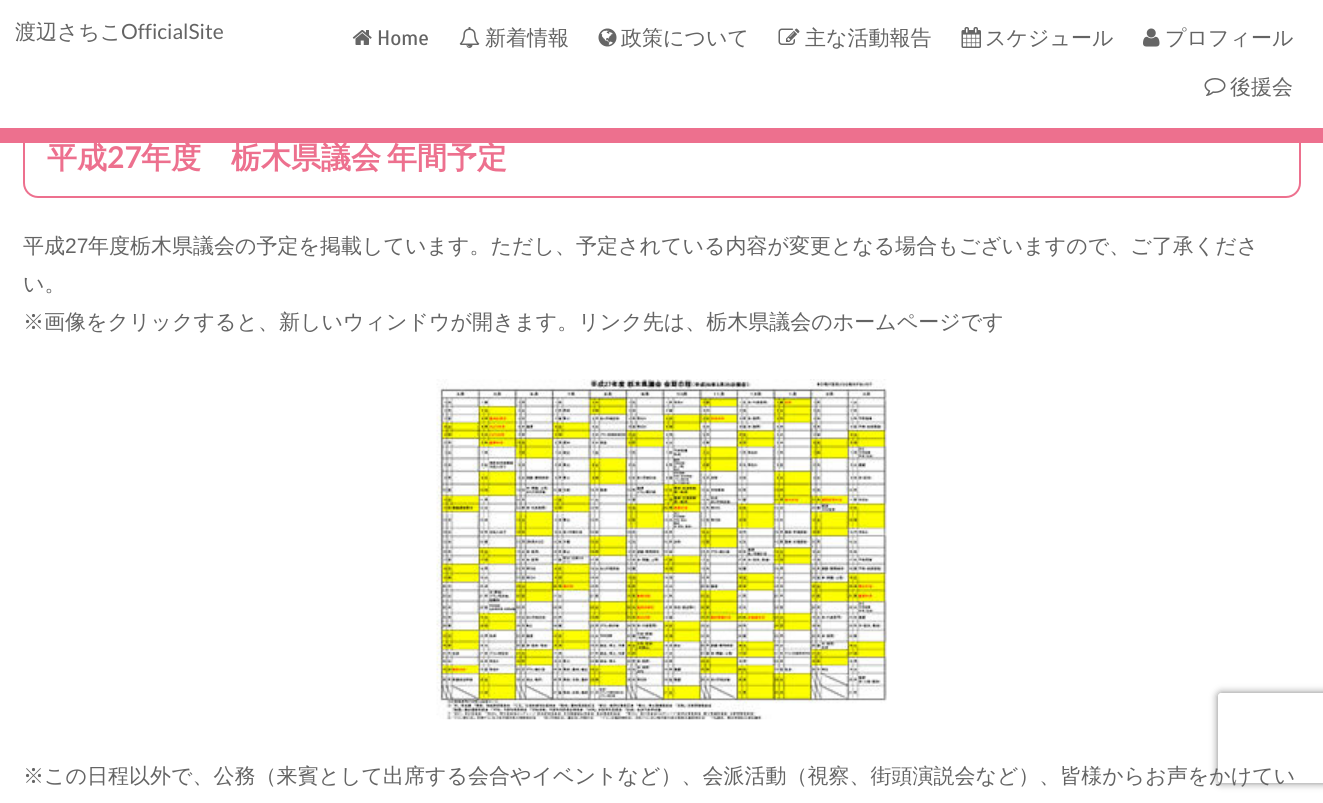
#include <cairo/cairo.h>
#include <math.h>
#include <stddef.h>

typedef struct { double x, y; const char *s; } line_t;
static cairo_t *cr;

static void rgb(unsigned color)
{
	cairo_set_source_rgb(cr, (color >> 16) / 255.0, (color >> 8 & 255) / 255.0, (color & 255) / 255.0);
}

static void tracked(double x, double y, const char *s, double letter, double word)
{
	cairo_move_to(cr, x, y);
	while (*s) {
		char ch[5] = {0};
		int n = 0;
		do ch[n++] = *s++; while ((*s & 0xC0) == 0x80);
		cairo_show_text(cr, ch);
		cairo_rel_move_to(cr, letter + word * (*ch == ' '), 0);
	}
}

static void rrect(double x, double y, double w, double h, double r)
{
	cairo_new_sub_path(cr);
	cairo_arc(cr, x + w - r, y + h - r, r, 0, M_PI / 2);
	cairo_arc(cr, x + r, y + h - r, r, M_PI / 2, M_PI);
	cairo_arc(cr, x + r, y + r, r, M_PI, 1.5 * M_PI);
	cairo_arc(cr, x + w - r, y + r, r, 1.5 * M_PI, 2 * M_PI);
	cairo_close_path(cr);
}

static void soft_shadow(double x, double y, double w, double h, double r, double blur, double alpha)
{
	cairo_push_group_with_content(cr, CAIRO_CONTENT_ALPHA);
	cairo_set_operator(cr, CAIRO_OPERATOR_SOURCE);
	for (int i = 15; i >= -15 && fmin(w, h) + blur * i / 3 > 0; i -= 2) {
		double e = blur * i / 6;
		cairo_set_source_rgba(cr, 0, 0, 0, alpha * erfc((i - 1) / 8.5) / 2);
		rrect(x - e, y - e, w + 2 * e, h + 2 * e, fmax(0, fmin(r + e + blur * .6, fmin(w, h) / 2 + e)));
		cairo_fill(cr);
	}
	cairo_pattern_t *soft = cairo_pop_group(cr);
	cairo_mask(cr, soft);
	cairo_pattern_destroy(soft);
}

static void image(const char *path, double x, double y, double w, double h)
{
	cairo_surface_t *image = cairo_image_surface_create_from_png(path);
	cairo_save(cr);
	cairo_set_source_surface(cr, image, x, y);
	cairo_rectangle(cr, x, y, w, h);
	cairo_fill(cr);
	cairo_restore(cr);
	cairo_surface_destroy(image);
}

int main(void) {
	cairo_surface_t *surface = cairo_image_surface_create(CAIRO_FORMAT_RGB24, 1323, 803);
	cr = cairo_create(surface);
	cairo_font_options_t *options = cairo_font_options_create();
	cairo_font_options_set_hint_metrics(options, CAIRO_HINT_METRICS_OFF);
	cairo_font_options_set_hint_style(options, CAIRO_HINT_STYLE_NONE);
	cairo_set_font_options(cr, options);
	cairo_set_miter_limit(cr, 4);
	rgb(0xffffff);
	cairo_paint(cr);
	rrect(24, 115, 1276, 82, 14);
	rgb(0xed708e);
	cairo_stroke(cr);
	rgb(0xffffff);
	cairo_rectangle(cr, 23, 114, 1278, 14);
	cairo_fill(cr);
	rgb(0xed708e);
	cairo_rectangle(cr, 0, 128, 1323, 15);
	cairo_fill(cr);
	image("img/1.png", 352, 30, 20, 15);
	image("img/2.png", 459, 27, 21, 21);
	image("img/3.png", 598, 28, 19, 19);
	image("img/4.png", 778, 28, 22, 17);
	image("img/5.png", 961, 27, 20, 21);
	image("img/6.png", 1143, 28, 17, 19);
	image("img/7.png", 1204, 78, 22, 18);
	image("img/8.png", 436, 379, 451, 341);
	cairo_save(cr);
	cairo_set_fill_rule(cr, CAIRO_FILL_RULE_EVEN_ODD);
	cairo_new_path(cr);
	cairo_move_to(cr, 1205, 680);
	cairo_line_to(cr, 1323, 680);
	cairo_line_to(cr, 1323, 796);
	cairo_line_to(cr, 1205, 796);
	cairo_close_path(cr);
	cairo_move_to(cr, 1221, 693);
	cairo_line_to(cr, 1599, 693);
	cairo_curve_to(cr, 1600.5, 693, 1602, 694.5, 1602, 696);
	cairo_line_to(cr, 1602, 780);
	cairo_curve_to(cr, 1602, 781.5, 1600.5, 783, 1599, 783);
	cairo_line_to(cr, 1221, 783);
	cairo_curve_to(cr, 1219.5, 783, 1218, 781.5, 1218, 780);
	cairo_line_to(cr, 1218, 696);
	cairo_curve_to(cr, 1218, 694.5, 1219.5, 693, 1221, 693);
	cairo_close_path(cr);
	cairo_clip(cr);
	rgb(0x808080);
	soft_shadow(1218, 693, 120, 90, 3, 4, 1);
	cairo_restore(cr);
	cairo_select_font_face(cr, "WenQuanYi Zen Hei Medium", CAIRO_FONT_SLANT_NORMAL, CAIRO_FONT_WEIGHT_NORMAL);
	cairo_set_font_size(cr, 21);
	rgb(0x646464);
	cairo_move_to(cr, 15, 39);
	cairo_show_text(cr, "渡辺さちこ");
	cairo_select_font_face(cr, "Lato", CAIRO_FONT_SLANT_NORMAL, CAIRO_FONT_WEIGHT_NORMAL);
	cairo_move_to(cr, 121, 39);
	cairo_show_text(cr, "OfficialSite");
	cairo_select_font_face(cr, "Scada", CAIRO_FONT_SLANT_NORMAL, CAIRO_FONT_WEIGHT_NORMAL);
	cairo_move_to(cr, 377, 45);
	cairo_show_text(cr, "Home");
	cairo_select_font_face(cr, "WenQuanYi Zen Hei Medium", CAIRO_FONT_SLANT_NORMAL, CAIRO_FONT_WEIGHT_NORMAL);
	{
		static const line_t items[] = {
			{485, 45, "新着情報"},
			{621, 45, "政策について"},
			{805, 45, "主な活動報告"},
			{985, 45, "スケジュール"},
			{1165, 45, "プロフィール"},
			{1230, 94, "後援会"},
		};
		for (size_t i = 0; i < sizeof items / sizeof *items; i++) {
			cairo_move_to(cr, items[i].x, items[i].y);
			cairo_show_text(cr, items[i].s);
		}
	}
	cairo_select_font_face(cr, "WenQuanYi Zen Hei", CAIRO_FONT_SLANT_NORMAL, CAIRO_FONT_WEIGHT_BOLD);
	cairo_set_font_size(cr, 30);
	rgb(0xed708e);
	cairo_move_to(cr, 47, 168);
	cairo_show_text(cr, "平成");
	cairo_select_font_face(cr, "Lato", CAIRO_FONT_SLANT_NORMAL, CAIRO_FONT_WEIGHT_BOLD);
	cairo_move_to(cr, 107, 168);
	cairo_show_text(cr, "27");
	cairo_select_font_face(cr, "WenQuanYi Zen Hei", CAIRO_FONT_SLANT_NORMAL, CAIRO_FONT_WEIGHT_BOLD);
	tracked(141, 168, "年度　栃木県議会 年間予定", 0, -3);
	cairo_select_font_face(cr, "WenQuanYi Zen Hei Medium", CAIRO_FONT_SLANT_NORMAL, CAIRO_FONT_WEIGHT_NORMAL);
	cairo_set_font_size(cr, 21);
	rgb(0x646464);
	cairo_move_to(cr, 23, 253);
	cairo_show_text(cr, "平成");
	cairo_select_font_face(cr, "Liberation Sans", CAIRO_FONT_SLANT_NORMAL, CAIRO_FONT_WEIGHT_NORMAL);
	cairo_move_to(cr, 65, 253);
	cairo_show_text(cr, "27");
	cairo_select_font_face(cr, "WenQuanYi Zen Hei Medium", CAIRO_FONT_SLANT_NORMAL, CAIRO_FONT_WEIGHT_NORMAL);
	{
		static const line_t items[] = {
			{88, 253, "年度栃木県議会の予定を掲載しています。ただし、予定されている内容が変更となる場合もございますので、ご了承くださ"},
			{23, 291, "い。"},
			{23, 329, "※画像をクリックすると、新しいウィンドウが開きます。リンク先は、栃木県議会のホームページです"},
			{23, 783, "※この日程以外で、公務（来賓として出席する会合やイベントなど）、会派活動（視察、街頭演説会など）、皆様からお声をかけてい"},
		};
		for (size_t i = 0; i < sizeof items / sizeof *items; i++) {
			cairo_move_to(cr, items[i].x, items[i].y);
			cairo_show_text(cr, items[i].s);
		}
	}
	cairo_surface_write_to_png(surface, "page.png");
	cairo_font_options_destroy(options);
	cairo_destroy(cr);
	cairo_surface_destroy(surface);
	return 0;
}
